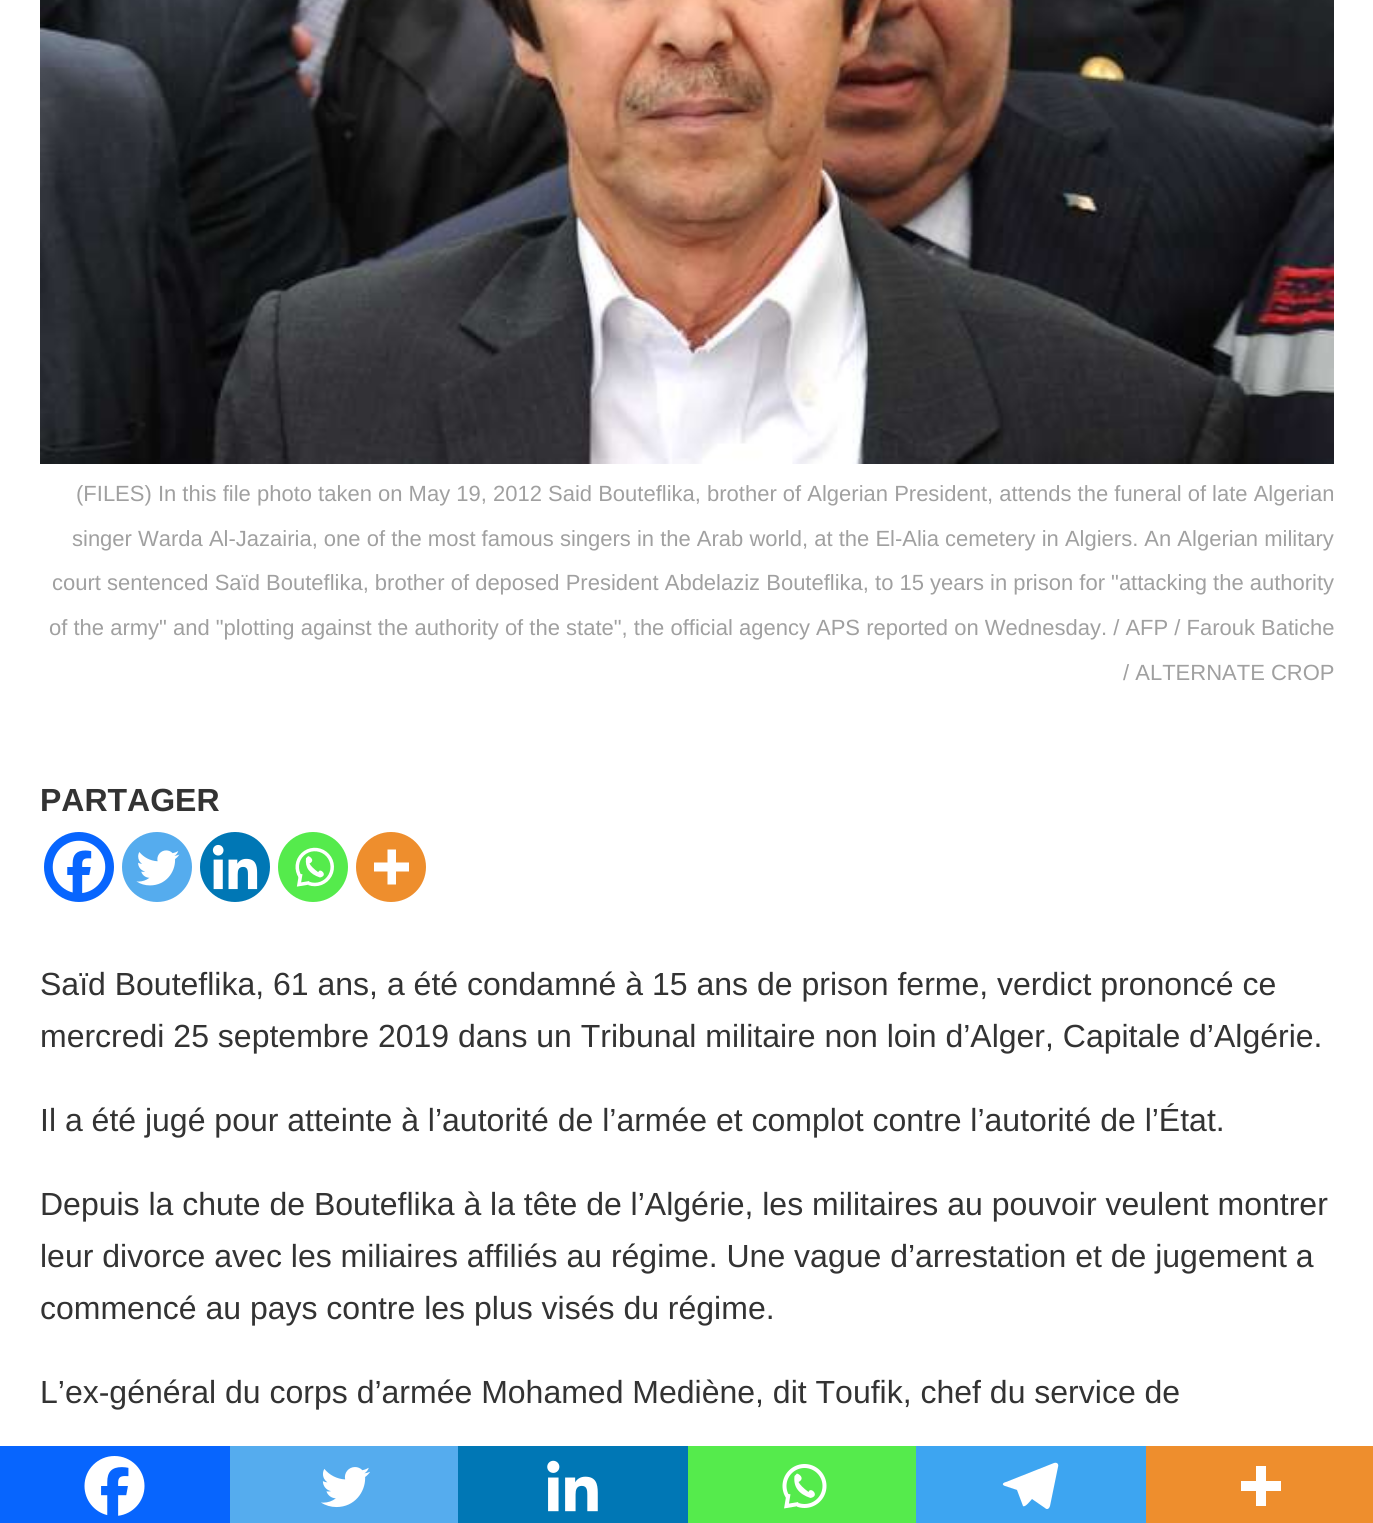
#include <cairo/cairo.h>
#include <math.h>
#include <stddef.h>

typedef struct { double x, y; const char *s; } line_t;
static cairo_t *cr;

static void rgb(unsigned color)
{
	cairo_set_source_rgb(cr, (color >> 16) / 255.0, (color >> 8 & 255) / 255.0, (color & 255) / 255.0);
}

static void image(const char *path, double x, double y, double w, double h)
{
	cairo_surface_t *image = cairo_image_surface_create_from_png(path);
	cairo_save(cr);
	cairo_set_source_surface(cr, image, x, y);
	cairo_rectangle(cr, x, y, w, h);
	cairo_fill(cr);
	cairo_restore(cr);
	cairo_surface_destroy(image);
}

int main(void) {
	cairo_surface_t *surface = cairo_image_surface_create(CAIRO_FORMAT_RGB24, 1373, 1523);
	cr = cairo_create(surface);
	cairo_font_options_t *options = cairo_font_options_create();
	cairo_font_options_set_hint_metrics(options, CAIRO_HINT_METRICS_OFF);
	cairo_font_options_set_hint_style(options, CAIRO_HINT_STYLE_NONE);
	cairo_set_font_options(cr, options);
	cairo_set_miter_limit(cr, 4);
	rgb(0xffffff);
	cairo_paint(cr);
	image("img/1.png", 40, 0, 1294, 464);
	rgb(0x0765fe);
	cairo_arc(cr, 79, 867, 35, 0, 2 * M_PI);
	cairo_fill(cr);
	image("img/2.png", 52, 840, 54, 53);
	rgb(0x55acee);
	cairo_arc(cr, 157, 867, 35, 0, 2 * M_PI);
	cairo_fill(cr);
	image("img/3.png", 136, 850, 44, 36);
	rgb(0x0077b5);
	cairo_arc(cr, 235, 867, 35, 0, 2 * M_PI);
	cairo_fill(cr);
	image("img/4.png", 212, 844, 46, 46);
	rgb(0x55eb4c);
	cairo_arc(cr, 313, 867, 35, 0, 2 * M_PI);
	cairo_fill(cr);
	image("img/5.png", 295, 847, 39, 40);
	rgb(0xee8e2d);
	cairo_arc(cr, 391, 867, 35, 0, 2 * M_PI);
	cairo_fill(cr);
	rgb(0xffffff);
	cairo_set_fill_rule(cr, CAIRO_FILL_RULE_EVEN_ODD);
	cairo_new_path(cr);
	cairo_move_to(cr, 396, 862.5);
	cairo_line_to(cr, 396, 849.5);
	cairo_line_to(cr, 387.5, 849.5);
	cairo_line_to(cr, 387.5, 862.5);
	cairo_line_to(cr, 374, 862.5);
	cairo_line_to(cr, 374, 871.5);
	cairo_line_to(cr, 387.5, 871.5);
	cairo_line_to(cr, 387.5, 884.5);
	cairo_line_to(cr, 396, 884.5);
	cairo_line_to(cr, 396, 871.5);
	cairo_line_to(cr, 409, 871.5);
	cairo_line_to(cr, 409, 862.5);
	cairo_close_path(cr);
	cairo_fill(cr);
	rgb(0x0765fe);
	cairo_rectangle(cr, 0, 1446, 230, 77);
	cairo_fill(cr);
	image("img/6.png", 84, 1456, 61, 60);
	rgb(0x55acee);
	cairo_rectangle(cr, 230, 1446, 228, 77);
	cairo_fill(cr);
	image("img/7.png", 321, 1467, 49, 41);
	rgb(0x0077b5);
	cairo_rectangle(cr, 458, 1446, 230, 77);
	cairo_fill(cr);
	image("img/8.png", 547, 1460, 51, 52);
	rgb(0x55eb4c);
	cairo_rectangle(cr, 688, 1446, 228, 77);
	cairo_fill(cr);
	image("img/9.png", 782, 1464, 45, 45);
	rgb(0x3da5f1);
	cairo_rectangle(cr, 916, 1446, 230, 77);
	cairo_fill(cr);
	rgb(0xffffff);
	cairo_set_fill_rule(cr, CAIRO_FILL_RULE_WINDING);
	cairo_new_path(cr);
	cairo_move_to(cr, 1054, 1463);
	cairo_line_to(cr, 1006, 1482);
	cairo_curve_to(cr, 1002, 1483, 1002, 1485, 1005, 1486);
	cairo_line_to(cr, 1017, 1490);
	cairo_line_to(cr, 1023, 1506);
	cairo_curve_to(cr, 1025, 1508, 1031, 1500, 1032, 1499);
	cairo_line_to(cr, 1045, 1508);
	cairo_curve_to(cr, 1047, 1510, 1049, 1509, 1050, 1506);
	cairo_line_to(cr, 1058, 1467);
	cairo_curve_to(cr, 1059, 1464, 1057, 1462, 1054, 1463);
	cairo_close_path(cr);
	cairo_fill(cr);
	rgb(0xee8e2d);
	cairo_rectangle(cr, 1146, 1446, 227, 77);
	cairo_fill(cr);
	rgb(0xffffff);
	cairo_set_fill_rule(cr, CAIRO_FILL_RULE_EVEN_ODD);
	cairo_new_path(cr);
	cairo_move_to(cr, 1266, 1481);
	cairo_line_to(cr, 1266, 1466);
	cairo_line_to(cr, 1256, 1466);
	cairo_line_to(cr, 1256, 1481);
	cairo_line_to(cr, 1241, 1481);
	cairo_line_to(cr, 1241, 1491);
	cairo_line_to(cr, 1256, 1491);
	cairo_line_to(cr, 1256, 1506);
	cairo_line_to(cr, 1266, 1506);
	cairo_line_to(cr, 1266, 1491);
	cairo_line_to(cr, 1281, 1491);
	cairo_line_to(cr, 1281, 1481);
	cairo_close_path(cr);
	cairo_fill(cr);
	cairo_select_font_face(cr, "Liberation Sans", CAIRO_FONT_SLANT_NORMAL, CAIRO_FONT_WEIGHT_NORMAL);
	cairo_set_font_size(cr, 22);
	rgb(0xa0a0a0);
	{
		static const line_t items[] = {
			{76, 501, "(FILES) In this file photo taken on May 19, 2012 Said Bouteflika, brother of Algerian President, attends the funeral of late Algerian"},
			{72, 546, "singer Warda Al-Jazairia, one of the most famous singers in the Arab world, at the El-Alia cemetery in Algiers. An Algerian military"},
			{52, 590, "court sentenced Saïd Bouteflika, brother of deposed President Abdelaziz Bouteflika, to 15 years in prison for \"attacking the authority"},
			{49, 635, "of the army\" and \"plotting against the authority of the state\", the official agency APS reported on Wednesday. / AFP / Farouk Batiche"},
			{1123, 680, "/ ALTERNATE CROP"},
		};
		for (size_t i = 0; i < sizeof items / sizeof *items; i++) {
			cairo_move_to(cr, items[i].x, items[i].y);
			cairo_show_text(cr, items[i].s);
		}
	}
	cairo_select_font_face(cr, "Liberation Sans", CAIRO_FONT_SLANT_NORMAL, CAIRO_FONT_WEIGHT_BOLD);
	cairo_set_font_size(cr, 32);
	rgb(0x333333);
	cairo_move_to(cr, 40, 811);
	cairo_show_text(cr, "PARTAGER");
	cairo_select_font_face(cr, "Liberation Sans", CAIRO_FONT_SLANT_NORMAL, CAIRO_FONT_WEIGHT_NORMAL);
	{
		static const line_t items[] = {
			{40, 995, "Saïd Bouteflika, 61 ans, a été condamné à 15 ans de prison ferme, verdict prononcé ce"},
			{40, 1047, "mercredi 25 septembre 2019 dans un Tribunal militaire non loin d’Alger, Capitale d’Algérie."},
			{40, 1131, "Il a été jugé pour atteinte à l’autorité de l’armée et complot contre l’autorité de l’État."},
			{40, 1215, "Depuis la chute de Bouteflika à la tête de l’Algérie, les militaires au pouvoir veulent montrer"},
			{40, 1267, "leur divorce avec les miliaires affiliés au régime. Une vague d’arrestation et de jugement a"},
			{40, 1319, "commencé au pays contre les plus visés du régime."},
			{40, 1403, "L’ex-général du corps d’armée Mohamed Mediène, dit Toufik, chef du service de"},
		};
		for (size_t i = 0; i < sizeof items / sizeof *items; i++) {
			cairo_move_to(cr, items[i].x, items[i].y);
			cairo_show_text(cr, items[i].s);
		}
	}
	cairo_surface_write_to_png(surface, "page.png");
	cairo_font_options_destroy(options);
	cairo_destroy(cr);
	cairo_surface_destroy(surface);
	return 0;
}
